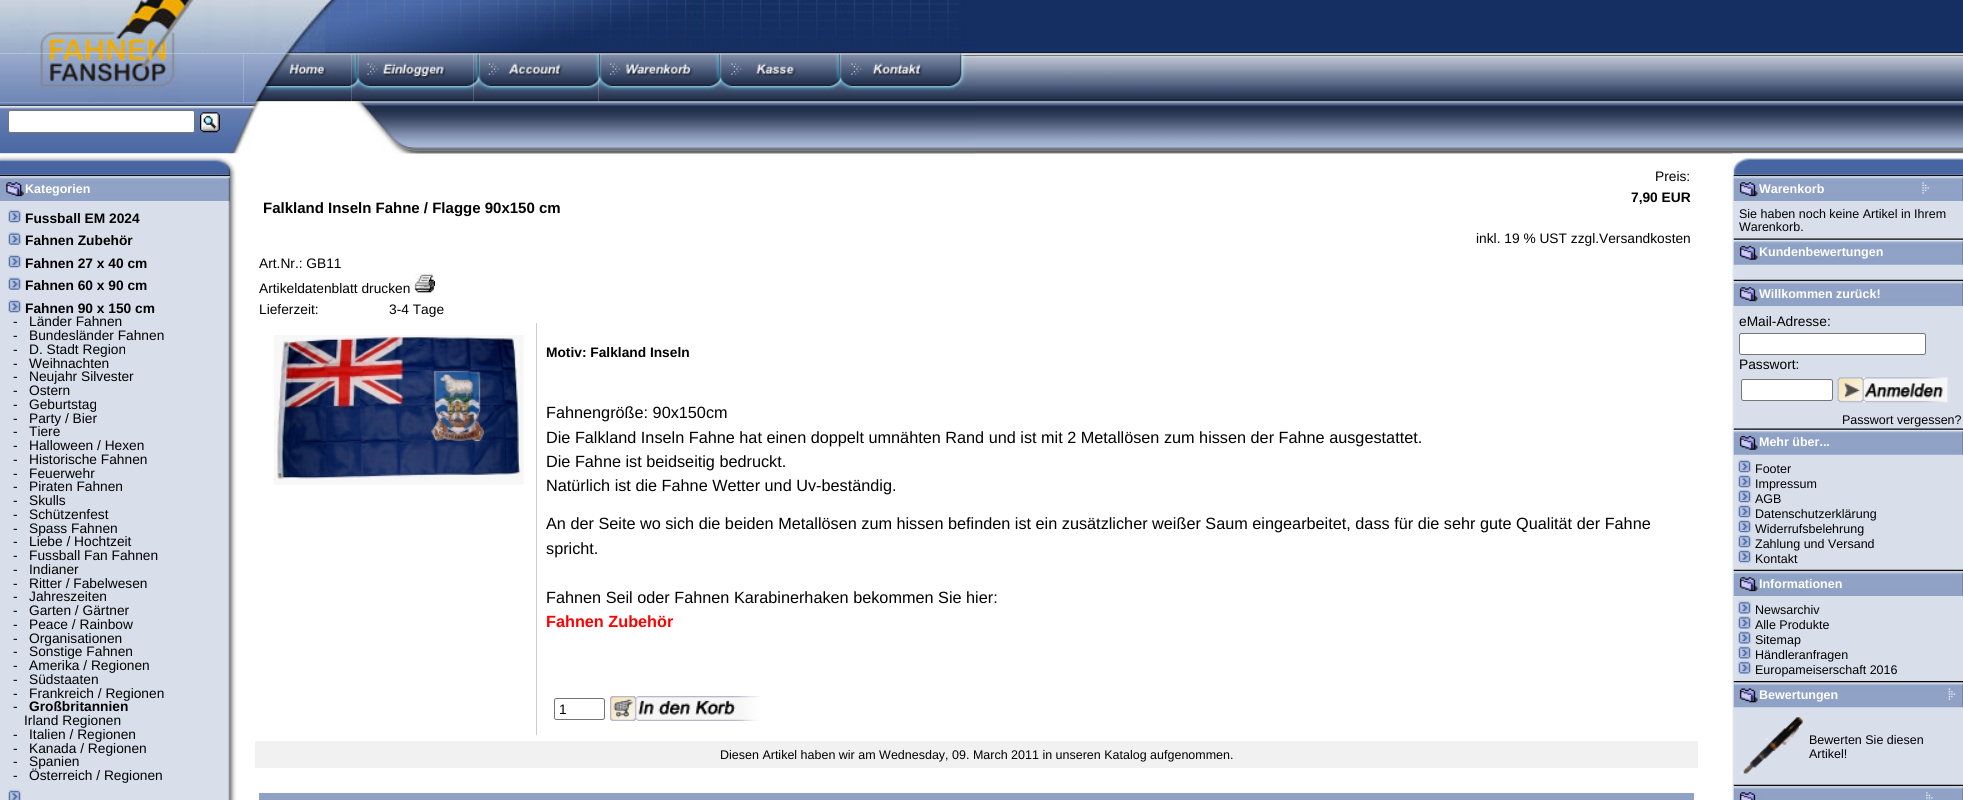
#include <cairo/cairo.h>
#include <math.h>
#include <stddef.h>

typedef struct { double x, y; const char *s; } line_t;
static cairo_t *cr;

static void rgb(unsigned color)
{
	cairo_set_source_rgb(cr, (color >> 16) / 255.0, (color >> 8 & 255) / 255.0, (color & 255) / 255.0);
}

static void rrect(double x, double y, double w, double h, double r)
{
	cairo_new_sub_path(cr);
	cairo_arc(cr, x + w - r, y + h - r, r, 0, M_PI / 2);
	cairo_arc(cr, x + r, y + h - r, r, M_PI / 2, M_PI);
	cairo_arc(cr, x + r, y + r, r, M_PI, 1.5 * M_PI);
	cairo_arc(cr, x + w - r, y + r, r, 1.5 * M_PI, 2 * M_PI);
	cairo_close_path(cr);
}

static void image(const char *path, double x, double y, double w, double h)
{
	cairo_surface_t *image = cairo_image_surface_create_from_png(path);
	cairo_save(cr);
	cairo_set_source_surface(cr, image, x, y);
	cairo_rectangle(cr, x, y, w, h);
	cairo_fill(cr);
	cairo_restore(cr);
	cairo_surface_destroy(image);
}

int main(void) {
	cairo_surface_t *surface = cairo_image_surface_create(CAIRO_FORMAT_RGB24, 1963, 800);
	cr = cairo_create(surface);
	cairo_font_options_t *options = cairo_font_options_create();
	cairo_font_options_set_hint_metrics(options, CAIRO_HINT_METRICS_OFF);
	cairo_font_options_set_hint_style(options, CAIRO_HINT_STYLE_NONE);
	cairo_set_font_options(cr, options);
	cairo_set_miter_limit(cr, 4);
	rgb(0xffffff);
	cairo_paint(cr);
	image("img/4.png", 0, 53, 244, 50);
	image("img/1.png", 0, 0, 325, 54);
	image("img/2.png", 325, 0, 650, 54);
	image("img/3.png", 975, 0, 988, 54);
	image("img/12.png", 0, 102, 250, 52);
	image("img/14.png", 250, 102, 10, 21);
	image("img/5.png", 243, 53, 109, 50);
	image("img/15.png", 354, 102, 621, 52);
	image("img/6.png", 351, 53, 123, 50);
	image("img/7.png", 473, 53, 126, 50);
	image("img/8.png", 598, 53, 122, 50);
	image("img/9.png", 720, 53, 120, 50);
	image("img/10.png", 840, 53, 135, 50);
	image("img/11.png", 975, 53, 988, 50);
	rgb(0xffffff);
	rrect(8.5, 110.5, 186, 22, 2);
	cairo_fill_preserve(cr);
	rgb(0x767676);
	cairo_set_line_width(cr, 1);
	cairo_stroke(cr);
	image("img/13.png", 200, 112, 20, 21);
	image("img/16.png", 975, 102, 988, 52);
	image("img/17.png", 0, 153, 237, 647);
	image("img/19.png", 0, 174, 230, 27);
	image("img/18.png", 0, 153, 237, 22);
	image("img/20.png", 8, 209, 14, 14);
	image("img/21.png", 8, 232, 14, 13);
	image("img/20.png", 8, 254, 14, 14);
	image("img/22.png", 8, 277, 14, 13);
	image("img/20.png", 8, 299, 14, 14);
	image("img/23.png", 8, 789, 14, 11);
	image("img/24.png", 414, 273, 21, 21);
	rgb(0xcccccc);
	cairo_rectangle(cr, 536, 323, 1, 412);
	cairo_fill(cr);
	image("img/25.png", 274, 335, 250, 150);
	rrect(554.5, 698.5, 50, 21, 2);
	rgb(0x767676);
	cairo_stroke(cr);
	image("img/26.png", 610, 696, 150, 25);
	rgb(0xf1f1f1);
	cairo_rectangle(cr, 255, 741, 1443, 27);
	cairo_fill(cr);
	rgb(0x8fa1c5);
	cairo_rectangle(cr, 259, 793, 1435, 7);
	cairo_fill(cr);
	image("img/27.png", 1732, 153, 231, 647);
	image("img/29.png", 1733, 174, 230, 27);
	image("img/28.png", 1732, 153, 231, 22);
	image("img/30.png", 1922, 182, 7, 12);
	image("img/31.png", 1733, 238, 230, 27);
	image("img/29.png", 1733, 279, 230, 27);
	rgb(0xffffff);
	rrect(1739.5, 333.5, 186, 21, 2);
	cairo_fill_preserve(cr);
	rgb(0x767676);
	cairo_stroke(cr);
	rgb(0xffffff);
	rrect(1741.5, 379.5, 91, 21, 2);
	cairo_fill_preserve(cr);
	rgb(0x767676);
	cairo_stroke(cr);
	image("img/32.png", 1837, 377, 111, 26);
	image("img/31.png", 1733, 428, 230, 27);
	image("img/33.png", 1738, 459, 14, 14);
	image("img/33.png", 1738, 474, 14, 14);
	image("img/33.png", 1738, 489, 14, 14);
	image("img/33.png", 1738, 504, 14, 14);
	image("img/33.png", 1738, 519, 14, 14);
	image("img/33.png", 1738, 534, 14, 14);
	image("img/33.png", 1738, 549, 14, 14);
	image("img/29.png", 1733, 569, 230, 27);
	image("img/34.png", 1738, 601, 14, 13);
	image("img/34.png", 1738, 616, 14, 13);
	image("img/34.png", 1738, 631, 14, 13);
	image("img/34.png", 1738, 646, 14, 13);
	image("img/34.png", 1738, 661, 14, 13);
	image("img/35.png", 1733, 681, 230, 27);
	image("img/36.png", 1948, 688, 8, 12);
	image("img/37.png", 1741, 717, 62, 57);
	image("img/38.png", 1733, 784, 230, 16);
	image("img/39.png", 1926, 792, 7, 8);
	cairo_select_font_face(cr, "Liberation Sans", CAIRO_FONT_SLANT_NORMAL, CAIRO_FONT_WEIGHT_BOLD);
	cairo_set_font_size(cr, 12.5);
	rgb(0xffffff);
	cairo_move_to(cr, 25, 193);
	cairo_show_text(cr, "Kategorien");
	cairo_set_font_size(cr, 13.75);
	rgb(0x000000);
	{
		static const line_t items[] = {
			{25, 223, "Fussball EM 2024"},
			{25, 245, "Fahnen Zubehör"},
			{25, 268, "Fahnen 27 x 40 cm"},
			{25, 290, "Fahnen 60 x 90 cm"},
			{25, 313, "Fahnen 90 x 150 cm"},
		};
		for (size_t i = 0; i < sizeof items / sizeof *items; i++) {
			cairo_move_to(cr, items[i].x, items[i].y);
			cairo_show_text(cr, items[i].s);
		}
	}
	cairo_select_font_face(cr, "Liberation Sans", CAIRO_FONT_SLANT_NORMAL, CAIRO_FONT_WEIGHT_NORMAL);
	{
		static const line_t items[] = {
			{13, 326, "-"},
			{29, 326, "Länder Fahnen"},
			{13, 340, "-"},
			{29, 340, "Bundesländer Fahnen"},
			{13, 354, "-"},
			{29, 354, "D. Stadt Region"},
			{13, 368, "-"},
			{29, 368, "Weihnachten"},
			{13, 381, "-"},
			{29, 381, "Neujahr Silvester"},
			{13, 395, "-"},
			{29, 395, "Ostern"},
			{13, 409, "-"},
			{29, 409, "Geburtstag"},
			{13, 423, "-"},
			{29, 423, "Party / Bier"},
			{13, 436, "-"},
			{29, 436, "Tiere"},
			{13, 450, "-"},
			{29, 450, "Halloween / Hexen"},
			{13, 464, "-"},
			{29, 464, "Historische Fahnen"},
			{13, 478, "-"},
			{29, 478, "Feuerwehr"},
			{13, 491, "-"},
			{29, 491, "Piraten Fahnen"},
			{13, 505, "-"},
			{29, 505, "Skulls"},
			{13, 519, "-"},
			{29, 519, "Schützenfest"},
			{13, 533, "-"},
			{29, 533, "Spass Fahnen"},
			{13, 546, "-"},
			{29, 546, "Liebe / Hochtzeit"},
			{13, 560, "-"},
			{29, 560, "Fussball Fan Fahnen"},
			{13, 574, "-"},
			{29, 574, "Indianer"},
			{13, 588, "-"},
			{29, 588, "Ritter / Fabelwesen"},
			{13, 601, "-"},
			{29, 601, "Jahreszeiten"},
			{13, 615, "-"},
			{29, 615, "Garten / Gärtner"},
			{13, 629, "-"},
			{29, 629, "Peace / Rainbow"},
			{13, 643, "-"},
			{29, 643, "Organisationen"},
			{13, 656, "-"},
			{29, 656, "Sonstige Fahnen"},
			{13, 670, "-"},
			{29, 670, "Amerika / Regionen"},
			{13, 684, "-"},
			{29, 684, "Südstaaten"},
			{13, 698, "-"},
			{29, 698, "Frankreich / Regionen"},
			{13, 711, "-"},
		};
		for (size_t i = 0; i < sizeof items / sizeof *items; i++) {
			cairo_move_to(cr, items[i].x, items[i].y);
			cairo_show_text(cr, items[i].s);
		}
	}
	cairo_select_font_face(cr, "Liberation Sans", CAIRO_FONT_SLANT_NORMAL, CAIRO_FONT_WEIGHT_BOLD);
	cairo_move_to(cr, 29, 711);
	cairo_show_text(cr, "Großbritannien");
	cairo_select_font_face(cr, "Liberation Sans", CAIRO_FONT_SLANT_NORMAL, CAIRO_FONT_WEIGHT_NORMAL);
	{
		static const line_t items[] = {
			{24, 725, "Irland Regionen"},
			{13, 739, "-"},
			{29, 739, "Italien / Regionen"},
			{13, 753, "-"},
			{29, 753, "Kanada / Regionen"},
			{13, 766, "-"},
			{29, 766, "Spanien"},
			{13, 780, "-"},
			{29, 780, "Österreich / Regionen"},
		};
		for (size_t i = 0; i < sizeof items / sizeof *items; i++) {
			cairo_move_to(cr, items[i].x, items[i].y);
			cairo_show_text(cr, items[i].s);
		}
	}
	cairo_select_font_face(cr, "Liberation Sans", CAIRO_FONT_SLANT_NORMAL, CAIRO_FONT_WEIGHT_BOLD);
	cairo_set_font_size(cr, 15);
	cairo_move_to(cr, 263, 213);
	cairo_show_text(cr, "Falkland Inseln Fahne / Flagge 90x150 cm");
	cairo_select_font_face(cr, "Liberation Sans", CAIRO_FONT_SLANT_NORMAL, CAIRO_FONT_WEIGHT_NORMAL);
	cairo_set_font_size(cr, 13.75);
	cairo_move_to(cr, 1655, 181);
	cairo_show_text(cr, "Preis:");
	cairo_select_font_face(cr, "Liberation Sans", CAIRO_FONT_SLANT_NORMAL, CAIRO_FONT_WEIGHT_BOLD);
	cairo_move_to(cr, 1631, 202);
	cairo_show_text(cr, "7,90 EUR");
	cairo_select_font_face(cr, "Liberation Sans", CAIRO_FONT_SLANT_NORMAL, CAIRO_FONT_WEIGHT_NORMAL);
	{
		static const line_t items[] = {
			{1476, 243, "inkl. 19 % UST zzgl.Versandkosten"},
			{259, 268, "Art.Nr.: GB11"},
			{259, 293, "Artikeldatenblatt drucken"},
			{259, 314, "Lieferzeit:"},
			{389, 314, "3-4 Tage"},
		};
		for (size_t i = 0; i < sizeof items / sizeof *items; i++) {
			cairo_move_to(cr, items[i].x, items[i].y);
			cairo_show_text(cr, items[i].s);
		}
	}
	cairo_select_font_face(cr, "Liberation Sans", CAIRO_FONT_SLANT_NORMAL, CAIRO_FONT_WEIGHT_BOLD);
	cairo_move_to(cr, 546, 357);
	cairo_show_text(cr, "Motiv: Falkland Inseln");
	cairo_select_font_face(cr, "Liberation Sans", CAIRO_FONT_SLANT_NORMAL, CAIRO_FONT_WEIGHT_NORMAL);
	cairo_set_font_size(cr, 16.25);
	{
		static const line_t items[] = {
			{546, 418, "Fahnengröße: 90x150cm"},
			{546, 443, "Die Falkland Inseln Fahne hat einen doppelt umnähten Rand und ist mit 2 Metallösen zum hissen der Fahne ausgestattet."},
			{546, 467, "Die Fahne ist beidseitig bedruckt."},
			{546, 491, "Natürlich ist die Fahne Wetter und Uv-beständig."},
			{546, 529, "An der Seite wo sich die beiden Metallösen zum hissen befinden ist ein zusätzlicher weißer Saum eingearbeitet, dass für die sehr gute Qualität der Fahne"},
			{546, 554, "spricht."},
			{546, 603, "Fahnen Seil oder Fahnen Karabinerhaken bekommen Sie hier:"},
		};
		for (size_t i = 0; i < sizeof items / sizeof *items; i++) {
			cairo_move_to(cr, items[i].x, items[i].y);
			cairo_show_text(cr, items[i].s);
		}
	}
	cairo_select_font_face(cr, "Liberation Sans", CAIRO_FONT_SLANT_NORMAL, CAIRO_FONT_WEIGHT_BOLD);
	rgb(0xff0000);
	cairo_move_to(cr, 546, 627);
	cairo_show_text(cr, "Fahnen Zubehör");
	cairo_select_font_face(cr, "Liberation Sans", CAIRO_FONT_SLANT_NORMAL, CAIRO_FONT_WEIGHT_NORMAL);
	cairo_set_font_size(cr, 13.75);
	rgb(0x000000);
	cairo_move_to(cr, 559, 714);
	cairo_show_text(cr, "1");
	cairo_set_font_size(cr, 12.5);
	cairo_move_to(cr, 720, 759);
	cairo_show_text(cr, "Diesen Artikel haben wir am Wednesday, 09. March 2011 in unseren Katalog aufgenommen.");
	cairo_select_font_face(cr, "Liberation Sans", CAIRO_FONT_SLANT_NORMAL, CAIRO_FONT_WEIGHT_BOLD);
	rgb(0xffffff);
	cairo_move_to(cr, 1759, 193);
	cairo_show_text(cr, "Warenkorb");
	cairo_select_font_face(cr, "Liberation Sans", CAIRO_FONT_SLANT_NORMAL, CAIRO_FONT_WEIGHT_NORMAL);
	rgb(0x000000);
	cairo_move_to(cr, 1739, 218);
	cairo_show_text(cr, "Sie haben noch keine Artikel in Ihrem");
	cairo_move_to(cr, 1739, 231);
	cairo_show_text(cr, "Warenkorb.");
	cairo_select_font_face(cr, "Liberation Sans", CAIRO_FONT_SLANT_NORMAL, CAIRO_FONT_WEIGHT_BOLD);
	rgb(0xffffff);
	cairo_move_to(cr, 1759, 256);
	cairo_show_text(cr, "Kundenbewertungen");
	cairo_move_to(cr, 1759, 298);
	cairo_show_text(cr, "Willkommen zurück!");
	cairo_select_font_face(cr, "Liberation Sans", CAIRO_FONT_SLANT_NORMAL, CAIRO_FONT_WEIGHT_NORMAL);
	cairo_set_font_size(cr, 13.75);
	rgb(0x000000);
	cairo_move_to(cr, 1739, 326);
	cairo_show_text(cr, "eMail-Adresse:");
	cairo_move_to(cr, 1739, 369);
	cairo_show_text(cr, "Passwort:");
	cairo_set_font_size(cr, 12.5);
	cairo_move_to(cr, 1842, 424);
	cairo_show_text(cr, "Passwort vergessen?");
	cairo_select_font_face(cr, "Liberation Sans", CAIRO_FONT_SLANT_NORMAL, CAIRO_FONT_WEIGHT_BOLD);
	rgb(0xffffff);
	cairo_move_to(cr, 1759, 446);
	cairo_show_text(cr, "Mehr über...");
	cairo_select_font_face(cr, "Liberation Sans", CAIRO_FONT_SLANT_NORMAL, CAIRO_FONT_WEIGHT_NORMAL);
	rgb(0x000000);
	{
		static const line_t items[] = {
			{1755, 473, "Footer"},
			{1755, 488, "Impressum"},
			{1755, 503, "AGB"},
			{1755, 518, "Datenschutzerklärung"},
			{1755, 533, "Widerrufsbelehrung"},
			{1755, 548, "Zahlung und Versand"},
			{1755, 563, "Kontakt"},
		};
		for (size_t i = 0; i < sizeof items / sizeof *items; i++) {
			cairo_move_to(cr, items[i].x, items[i].y);
			cairo_show_text(cr, items[i].s);
		}
	}
	cairo_select_font_face(cr, "Liberation Sans", CAIRO_FONT_SLANT_NORMAL, CAIRO_FONT_WEIGHT_BOLD);
	rgb(0xffffff);
	cairo_move_to(cr, 1759, 588);
	cairo_show_text(cr, "Informationen");
	cairo_select_font_face(cr, "Liberation Sans", CAIRO_FONT_SLANT_NORMAL, CAIRO_FONT_WEIGHT_NORMAL);
	rgb(0x000000);
	{
		static const line_t items[] = {
			{1755, 614, "Newsarchiv"},
			{1755, 629, "Alle Produkte"},
			{1755, 644, "Sitemap"},
			{1755, 659, "Händleranfragen"},
			{1755, 674, "Europameiserschaft 2016"},
		};
		for (size_t i = 0; i < sizeof items / sizeof *items; i++) {
			cairo_move_to(cr, items[i].x, items[i].y);
			cairo_show_text(cr, items[i].s);
		}
	}
	cairo_select_font_face(cr, "Liberation Sans", CAIRO_FONT_SLANT_NORMAL, CAIRO_FONT_WEIGHT_BOLD);
	rgb(0xffffff);
	cairo_move_to(cr, 1759, 699);
	cairo_show_text(cr, "Bewertungen");
	cairo_select_font_face(cr, "Liberation Sans", CAIRO_FONT_SLANT_NORMAL, CAIRO_FONT_WEIGHT_NORMAL);
	rgb(0x000000);
	cairo_move_to(cr, 1809, 744);
	cairo_show_text(cr, "Bewerten Sie diesen");
	cairo_move_to(cr, 1809, 758);
	cairo_show_text(cr, "Artikel!");
	cairo_surface_write_to_png(surface, "page.png");
	cairo_font_options_destroy(options);
	cairo_destroy(cr);
	cairo_surface_destroy(surface);
	return 0;
}
